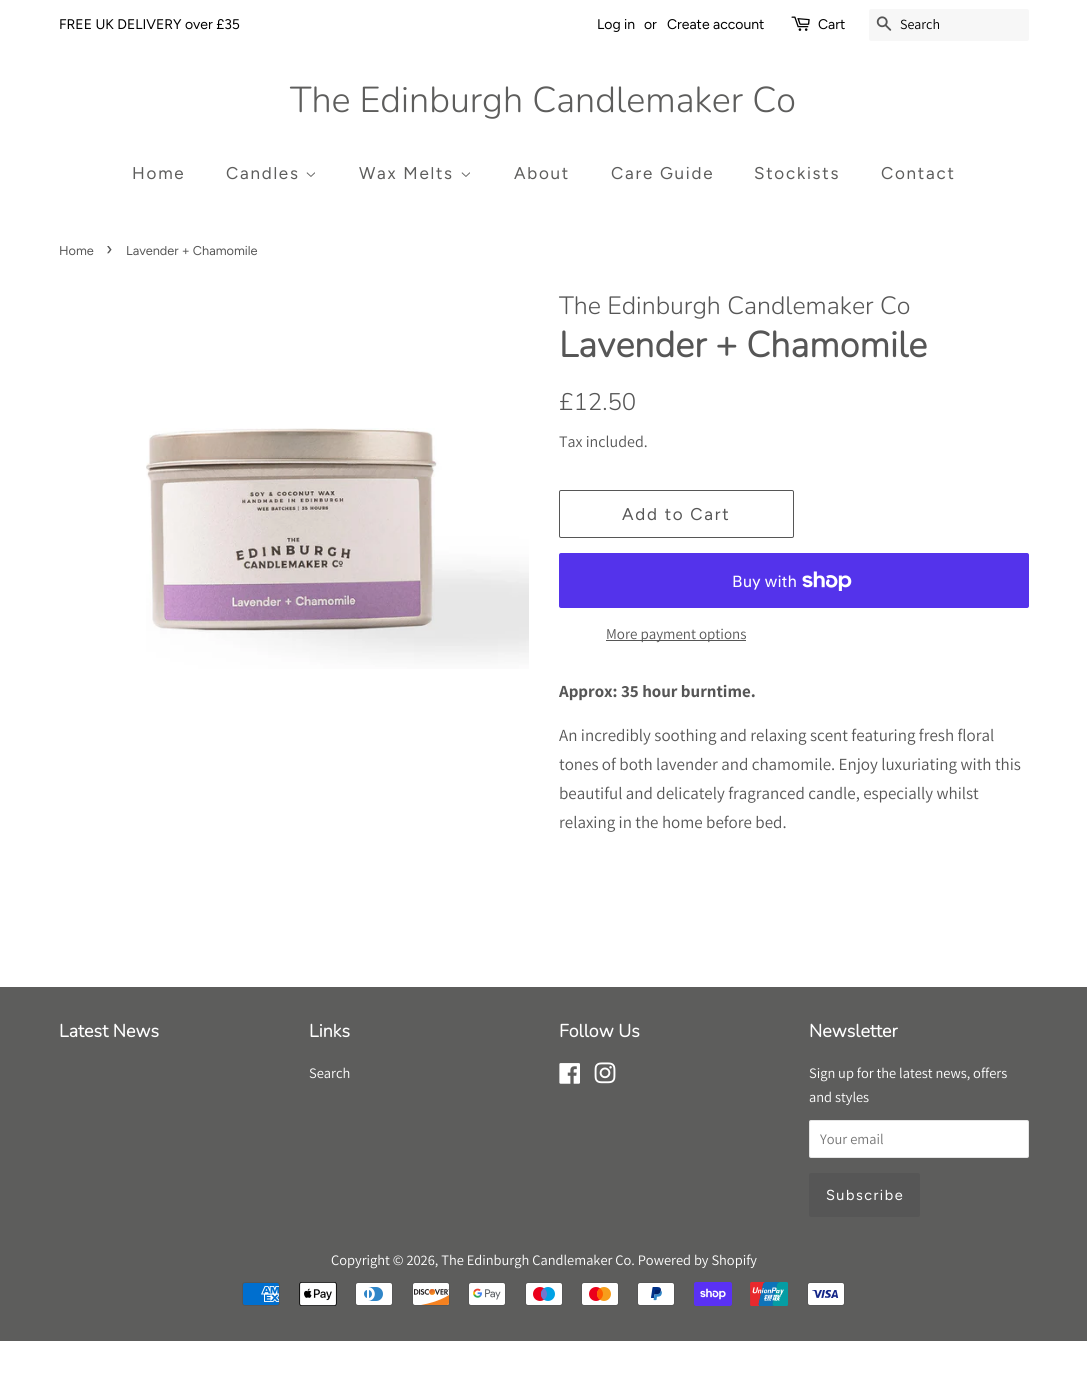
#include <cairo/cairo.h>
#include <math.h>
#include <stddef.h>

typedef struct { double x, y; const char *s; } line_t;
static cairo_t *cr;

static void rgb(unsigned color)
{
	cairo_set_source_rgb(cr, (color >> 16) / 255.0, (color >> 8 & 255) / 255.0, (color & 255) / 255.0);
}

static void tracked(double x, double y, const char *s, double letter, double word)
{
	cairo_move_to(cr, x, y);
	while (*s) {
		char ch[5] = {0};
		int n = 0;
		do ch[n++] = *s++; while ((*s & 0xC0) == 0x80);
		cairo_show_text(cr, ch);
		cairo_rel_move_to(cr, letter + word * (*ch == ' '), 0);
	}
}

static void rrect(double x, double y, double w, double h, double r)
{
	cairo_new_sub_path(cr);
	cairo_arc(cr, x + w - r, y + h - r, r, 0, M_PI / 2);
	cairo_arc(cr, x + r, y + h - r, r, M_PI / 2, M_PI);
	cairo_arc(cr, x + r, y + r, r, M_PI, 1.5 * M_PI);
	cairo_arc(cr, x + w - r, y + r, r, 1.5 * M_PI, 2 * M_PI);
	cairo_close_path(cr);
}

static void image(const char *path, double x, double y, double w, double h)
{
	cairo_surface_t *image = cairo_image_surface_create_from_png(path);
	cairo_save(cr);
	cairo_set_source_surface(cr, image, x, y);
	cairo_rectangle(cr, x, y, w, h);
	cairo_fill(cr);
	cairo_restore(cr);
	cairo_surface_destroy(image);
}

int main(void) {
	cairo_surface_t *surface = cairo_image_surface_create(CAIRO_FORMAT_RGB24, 1087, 1400);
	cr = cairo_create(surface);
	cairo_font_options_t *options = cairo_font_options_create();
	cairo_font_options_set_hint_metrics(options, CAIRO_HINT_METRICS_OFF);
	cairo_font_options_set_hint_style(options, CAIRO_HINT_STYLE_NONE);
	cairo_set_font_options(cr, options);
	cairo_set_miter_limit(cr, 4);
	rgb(0xffffff);
	cairo_paint(cr);
	image("img/1.png", 791, 16, 19, 15);
	rgb(0xf7f7f7);
	rrect(869, 9, 160, 32, 2);
	cairo_fill(cr);
	image("img/2.png", 876, 16, 16, 15);
	image("img/3.png", 306, 172, 9, 5);
	image("img/3.png", 461, 172, 9, 5);
	image("img/4.png", 146, 428, 383, 241);
	rrect(559.5, 490.5, 234, 47, 1.5);
	rgb(0x565656);
	cairo_set_line_width(cr, 1);
	cairo_stroke(cr);
	rgb(0x5433eb);
	rrect(559, 553, 470, 55, 2);
	cairo_fill(cr);
	image("img/5.png", 802, 571, 50, 20);
	rgb(0x565656);
	cairo_rectangle(cr, 606, 640, 140, 1);
	cairo_fill(cr);
	rgb(0x5d5d5c);
	cairo_rectangle(cr, 0, 987, 1087, 354);
	cairo_fill(cr);
	image("img/6.png", 559, 1063, 21, 21);
	image("img/7.png", 594, 1062, 22, 22);
	rgb(0xffffff);
	rrect(809, 1120, 220, 38, 2);
	cairo_fill(cr);
	rrect(809.5, 1120.5, 219, 37, 1.5);
	cairo_set_source_rgba(cr, 0.337, 0.337, 0.337, 0.15);
	cairo_stroke(cr);
	rgb(0x565656);
	rrect(809, 1173, 111, 44, 2);
	cairo_fill(cr);
	image("img/8.png", 242, 1282, 38, 24);
	image("img/9.png", 299, 1282, 38, 24);
	image("img/10.png", 355, 1282, 38, 24);
	image("img/11.png", 412, 1282, 38, 24);
	image("img/12.png", 468, 1282, 38, 24);
	image("img/13.png", 525, 1282, 38, 24);
	image("img/14.png", 581, 1282, 38, 24);
	image("img/15.png", 637, 1282, 38, 24);
	image("img/16.png", 694, 1282, 38, 24);
	image("img/17.png", 750, 1282, 38, 24);
	image("img/18.png", 807, 1282, 38, 24);
	cairo_select_font_face(cr, "Figtree", CAIRO_FONT_SLANT_NORMAL, CAIRO_FONT_WEIGHT_NORMAL);
	cairo_set_font_size(cr, 14);
	rgb(0x000000);
	{
		static const line_t items[] = {
			{59, 29, "FREE UK DELIVERY over £35"},
			{597, 29, "Log in"},
			{644, 29, "or"},
			{667, 29, "Create account"},
			{818, 29, "Cart"},
		};
		for (size_t i = 0; i < sizeof items / sizeof *items; i++) {
			cairo_move_to(cr, items[i].x, items[i].y);
			cairo_show_text(cr, items[i].s);
		}
	}
	cairo_select_font_face(cr, "Assistant", CAIRO_FONT_SLANT_NORMAL, CAIRO_FONT_WEIGHT_NORMAL);
	cairo_move_to(cr, 900, 29);
	cairo_show_text(cr, "Search");
	cairo_select_font_face(cr, "Nunito Light", CAIRO_FONT_SLANT_NORMAL, CAIRO_FONT_WEIGHT_NORMAL);
	cairo_set_font_size(cr, 36);
	rgb(0x5d5d5c);
	cairo_move_to(cr, 290, 112);
	cairo_show_text(cr, "The Edinburgh Candlemaker Co");
	cairo_select_font_face(cr, "Figtree", CAIRO_FONT_SLANT_NORMAL, CAIRO_FONT_WEIGHT_NORMAL);
	cairo_set_font_size(cr, 17);
	{
		static const line_t items[] = {
			{132, 179, "Home"},
			{226, 179, "Candles"},
			{359, 179, "Wax Melts"},
			{514, 179, "About"},
			{611, 179, "Care Guide"},
			{754, 179, "Stockists"},
			{881, 179, "Contact"},
		};
		for (size_t i = 0; i < sizeof items / sizeof *items; i++) {
			tracked(items[i].x, items[i].y, items[i].s, 1.75, 0);
		}
	}
	cairo_set_font_size(cr, 12.75);
	rgb(0x565656);
	cairo_move_to(cr, 59, 255);
	cairo_show_text(cr, "Home");
	cairo_set_font_size(cr, 18);
	cairo_move_to(cr, 106, 255);
	cairo_show_text(cr, "›");
	cairo_set_font_size(cr, 12.75);
	cairo_move_to(cr, 126, 255);
	cairo_show_text(cr, "Lavender + Chamomile");
	cairo_select_font_face(cr, "Nunito Light", CAIRO_FONT_SLANT_NORMAL, CAIRO_FONT_WEIGHT_NORMAL);
	cairo_set_font_size(cr, 25);
	cairo_move_to(cr, 559, 314);
	cairo_show_text(cr, "The Edinburgh Candlemaker Co");
	cairo_select_font_face(cr, "Nunito", CAIRO_FONT_SLANT_NORMAL, CAIRO_FONT_WEIGHT_BOLD);
	cairo_set_font_size(cr, 36);
	cairo_move_to(cr, 559, 357);
	cairo_show_text(cr, "Lavender + Chamomile");
	cairo_select_font_face(cr, "Nunito Light", CAIRO_FONT_SLANT_NORMAL, CAIRO_FONT_WEIGHT_NORMAL);
	cairo_set_font_size(cr, 24);
	cairo_move_to(cr, 559, 410);
	cairo_show_text(cr, "£12.50");
	cairo_select_font_face(cr, "Assistant", CAIRO_FONT_SLANT_NORMAL, CAIRO_FONT_WEIGHT_NORMAL);
	cairo_set_font_size(cr, 16);
	cairo_move_to(cr, 559, 447);
	cairo_show_text(cr, "Tax included.");
	cairo_select_font_face(cr, "Figtree", CAIRO_FONT_SLANT_NORMAL, CAIRO_FONT_WEIGHT_NORMAL);
	cairo_set_font_size(cr, 17);
	tracked(622, 520, "Add to Cart", 1.75, 0);
	cairo_select_font_face(cr, "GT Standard", CAIRO_FONT_SLANT_NORMAL, CAIRO_FONT_WEIGHT_NORMAL);
	cairo_set_font_size(cr, 16);
	rgb(0xffffff);
	cairo_move_to(cr, 732, 587);
	cairo_show_text(cr, "Buy with");
	cairo_select_font_face(cr, "Assistant", CAIRO_FONT_SLANT_NORMAL, CAIRO_FONT_WEIGHT_NORMAL);
	cairo_set_font_size(cr, 15);
	rgb(0x565656);
	cairo_move_to(cr, 606, 639);
	cairo_show_text(cr, "More payment options");
	cairo_select_font_face(cr, "Assistant", CAIRO_FONT_SLANT_NORMAL, CAIRO_FONT_WEIGHT_BOLD);
	cairo_set_font_size(cr, 17);
	cairo_move_to(cr, 559, 697);
	cairo_show_text(cr, "Approx: 35 hour burntime.");
	cairo_select_font_face(cr, "Assistant", CAIRO_FONT_SLANT_NORMAL, CAIRO_FONT_WEIGHT_NORMAL);
	{
		static const line_t items[] = {
			{559, 741, "An incredibly soothing and relaxing scent featuring fresh floral"},
			{559, 770, "tones of both lavender and chamomile. Enjoy luxuriating with this"},
			{559, 799, "beautiful and delicately fragranced candle, especially whilst"},
			{559, 828, "relaxing in the home before bed."},
		};
		for (size_t i = 0; i < sizeof items / sizeof *items; i++) {
			cairo_move_to(cr, items[i].x, items[i].y);
			cairo_show_text(cr, items[i].s);
		}
	}
	cairo_select_font_face(cr, "Nunito", CAIRO_FONT_SLANT_NORMAL, CAIRO_FONT_WEIGHT_BOLD);
	cairo_set_font_size(cr, 18);
	rgb(0xffffff);
	cairo_move_to(cr, 59, 1037);
	cairo_show_text(cr, "Latest News");
	cairo_move_to(cr, 309, 1037);
	cairo_show_text(cr, "Links");
	cairo_select_font_face(cr, "Assistant", CAIRO_FONT_SLANT_NORMAL, CAIRO_FONT_WEIGHT_NORMAL);
	cairo_set_font_size(cr, 14.45);
	cairo_move_to(cr, 309, 1078);
	cairo_show_text(cr, "Search");
	cairo_select_font_face(cr, "Nunito", CAIRO_FONT_SLANT_NORMAL, CAIRO_FONT_WEIGHT_BOLD);
	cairo_set_font_size(cr, 18);
	cairo_move_to(cr, 559, 1037);
	cairo_show_text(cr, "Follow Us");
	cairo_move_to(cr, 809, 1037);
	cairo_show_text(cr, "Newsletter");
	cairo_select_font_face(cr, "Assistant", CAIRO_FONT_SLANT_NORMAL, CAIRO_FONT_WEIGHT_NORMAL);
	cairo_set_font_size(cr, 14.45);
	cairo_move_to(cr, 809, 1078);
	cairo_show_text(cr, "Sign up for the latest news, offers");
	cairo_move_to(cr, 809, 1102);
	cairo_show_text(cr, "and styles");
	rgb(0x757575);
	cairo_move_to(cr, 820, 1144);
	cairo_show_text(cr, "Your email");
	cairo_select_font_face(cr, "Figtree", CAIRO_FONT_SLANT_NORMAL, CAIRO_FONT_WEIGHT_NORMAL);
	rgb(0xffffff);
	tracked(826, 1200, "Subscribe", 1.5, 0);
	cairo_select_font_face(cr, "Assistant", CAIRO_FONT_SLANT_NORMAL, CAIRO_FONT_WEIGHT_NORMAL);
	cairo_move_to(cr, 331, 1265);
	cairo_show_text(cr, "Copyright © 2026, The Edinburgh Candlemaker Co. Powered by Shopify");
	cairo_surface_write_to_png(surface, "page.png");
	cairo_font_options_destroy(options);
	cairo_destroy(cr);
	cairo_surface_destroy(surface);
	return 0;
}
